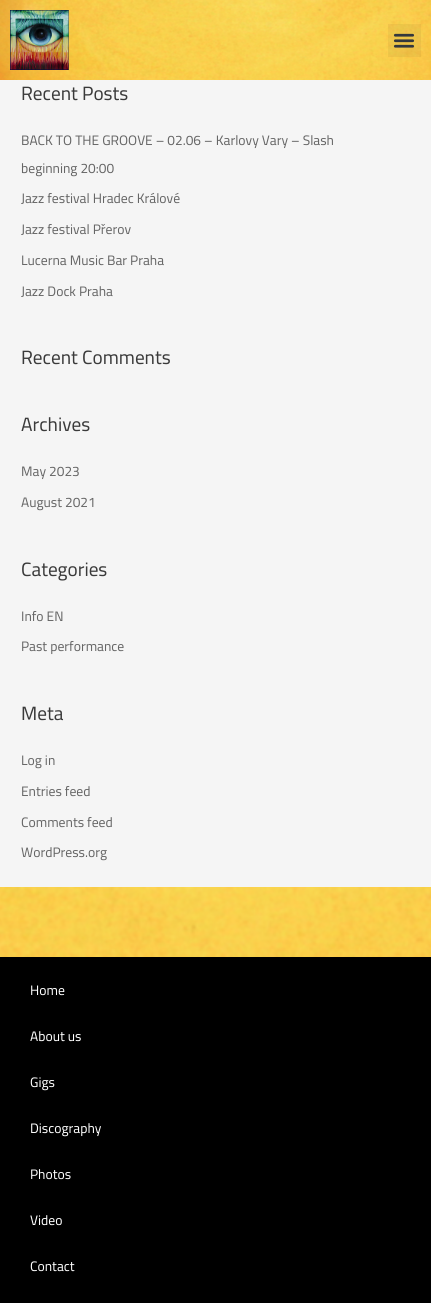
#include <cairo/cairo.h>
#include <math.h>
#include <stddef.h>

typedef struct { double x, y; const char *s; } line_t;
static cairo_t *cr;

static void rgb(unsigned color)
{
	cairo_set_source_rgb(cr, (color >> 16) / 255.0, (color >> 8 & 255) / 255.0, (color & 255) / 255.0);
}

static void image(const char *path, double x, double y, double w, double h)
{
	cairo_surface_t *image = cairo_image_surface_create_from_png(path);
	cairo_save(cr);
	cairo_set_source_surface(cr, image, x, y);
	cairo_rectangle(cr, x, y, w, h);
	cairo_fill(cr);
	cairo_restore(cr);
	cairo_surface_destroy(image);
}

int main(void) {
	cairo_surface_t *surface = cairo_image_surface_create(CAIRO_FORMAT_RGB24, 431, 1303);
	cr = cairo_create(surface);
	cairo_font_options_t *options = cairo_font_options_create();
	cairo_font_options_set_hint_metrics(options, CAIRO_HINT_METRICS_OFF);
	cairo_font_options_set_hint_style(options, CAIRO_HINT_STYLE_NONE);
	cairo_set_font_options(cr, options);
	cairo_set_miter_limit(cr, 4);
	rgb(0xf5f5f5);
	cairo_paint(cr);
	image("img/1.png", 0, 0, 431, 80);
	image("img/2.png", 10, 10, 59, 60);
	cairo_set_source_rgba(cr, 0, 0, 0, 0.05);
	cairo_rectangle(cr, 388, 24, 33, 33);
	cairo_fill(cr);
	image("img/3.png", 393, 33, 22, 15);
	image("img/4.png", 0, 887, 431, 70);
	rgb(0x000000);
	cairo_rectangle(cr, 0, 957, 431, 346);
	cairo_fill(cr);
	cairo_select_font_face(cr, "Cairo", CAIRO_FONT_SLANT_NORMAL, CAIRO_FONT_WEIGHT_NORMAL);
	cairo_set_font_size(cr, 19.25);
	rgb(0x3a3a3a);
	cairo_move_to(cr, 21, 100);
	cairo_show_text(cr, "Recent Posts");
	cairo_set_font_size(cr, 13.7);
	rgb(0x666666);
	{
		static const line_t items[] = {
			{21, 145, "BACK TO THE GROOVE – 02.06 – Karlovy Vary – Slash"},
			{21, 173, "beginning 20:00"},
			{21, 203, "Jazz festival Hradec Králové"},
			{21, 234, "Jazz festival Přerov"},
			{21, 265, "Lucerna Music Bar Praha"},
			{21, 296, "Jazz Dock Praha"},
		};
		for (size_t i = 0; i < sizeof items / sizeof *items; i++) {
			cairo_move_to(cr, items[i].x, items[i].y);
			cairo_show_text(cr, items[i].s);
		}
	}
	cairo_set_font_size(cr, 19.25);
	rgb(0x3a3a3a);
	cairo_move_to(cr, 21, 364);
	cairo_show_text(cr, "Recent Comments");
	cairo_move_to(cr, 21, 431);
	cairo_show_text(cr, "Archives");
	cairo_set_font_size(cr, 13.7);
	rgb(0x666666);
	cairo_move_to(cr, 21, 476);
	cairo_show_text(cr, "May 2023");
	cairo_move_to(cr, 21, 507);
	cairo_show_text(cr, "August 2021");
	cairo_set_font_size(cr, 19.25);
	rgb(0x3a3a3a);
	cairo_move_to(cr, 21, 576);
	cairo_show_text(cr, "Categories");
	cairo_set_font_size(cr, 13.7);
	rgb(0x666666);
	cairo_move_to(cr, 21, 621);
	cairo_show_text(cr, "Info EN");
	cairo_move_to(cr, 21, 651);
	cairo_show_text(cr, "Past performance");
	cairo_set_font_size(cr, 19.25);
	rgb(0x3a3a3a);
	cairo_move_to(cr, 21, 720);
	cairo_show_text(cr, "Meta");
	cairo_set_font_size(cr, 13.7);
	rgb(0x666666);
	{
		static const line_t items[] = {
			{21, 765, "Log in"},
			{21, 796, "Entries feed"},
			{21, 827, "Comments feed"},
			{21, 857, "WordPress.org"},
		};
		for (size_t i = 0; i < sizeof items / sizeof *items; i++) {
			cairo_move_to(cr, items[i].x, items[i].y);
			cairo_show_text(cr, items[i].s);
		}
	}
	rgb(0xffffff);
	{
		static const line_t items[] = {
			{30, 995, "Home"},
			{30, 1041, "About us"},
			{30, 1087, "Gigs"},
			{30, 1133, "Discography"},
			{30, 1179, "Photos"},
			{30, 1225, "Video"},
			{30, 1271, "Contact"},
		};
		for (size_t i = 0; i < sizeof items / sizeof *items; i++) {
			cairo_move_to(cr, items[i].x, items[i].y);
			cairo_show_text(cr, items[i].s);
		}
	}
	cairo_surface_write_to_png(surface, "page.png");
	cairo_font_options_destroy(options);
	cairo_destroy(cr);
	cairo_surface_destroy(surface);
	return 0;
}
